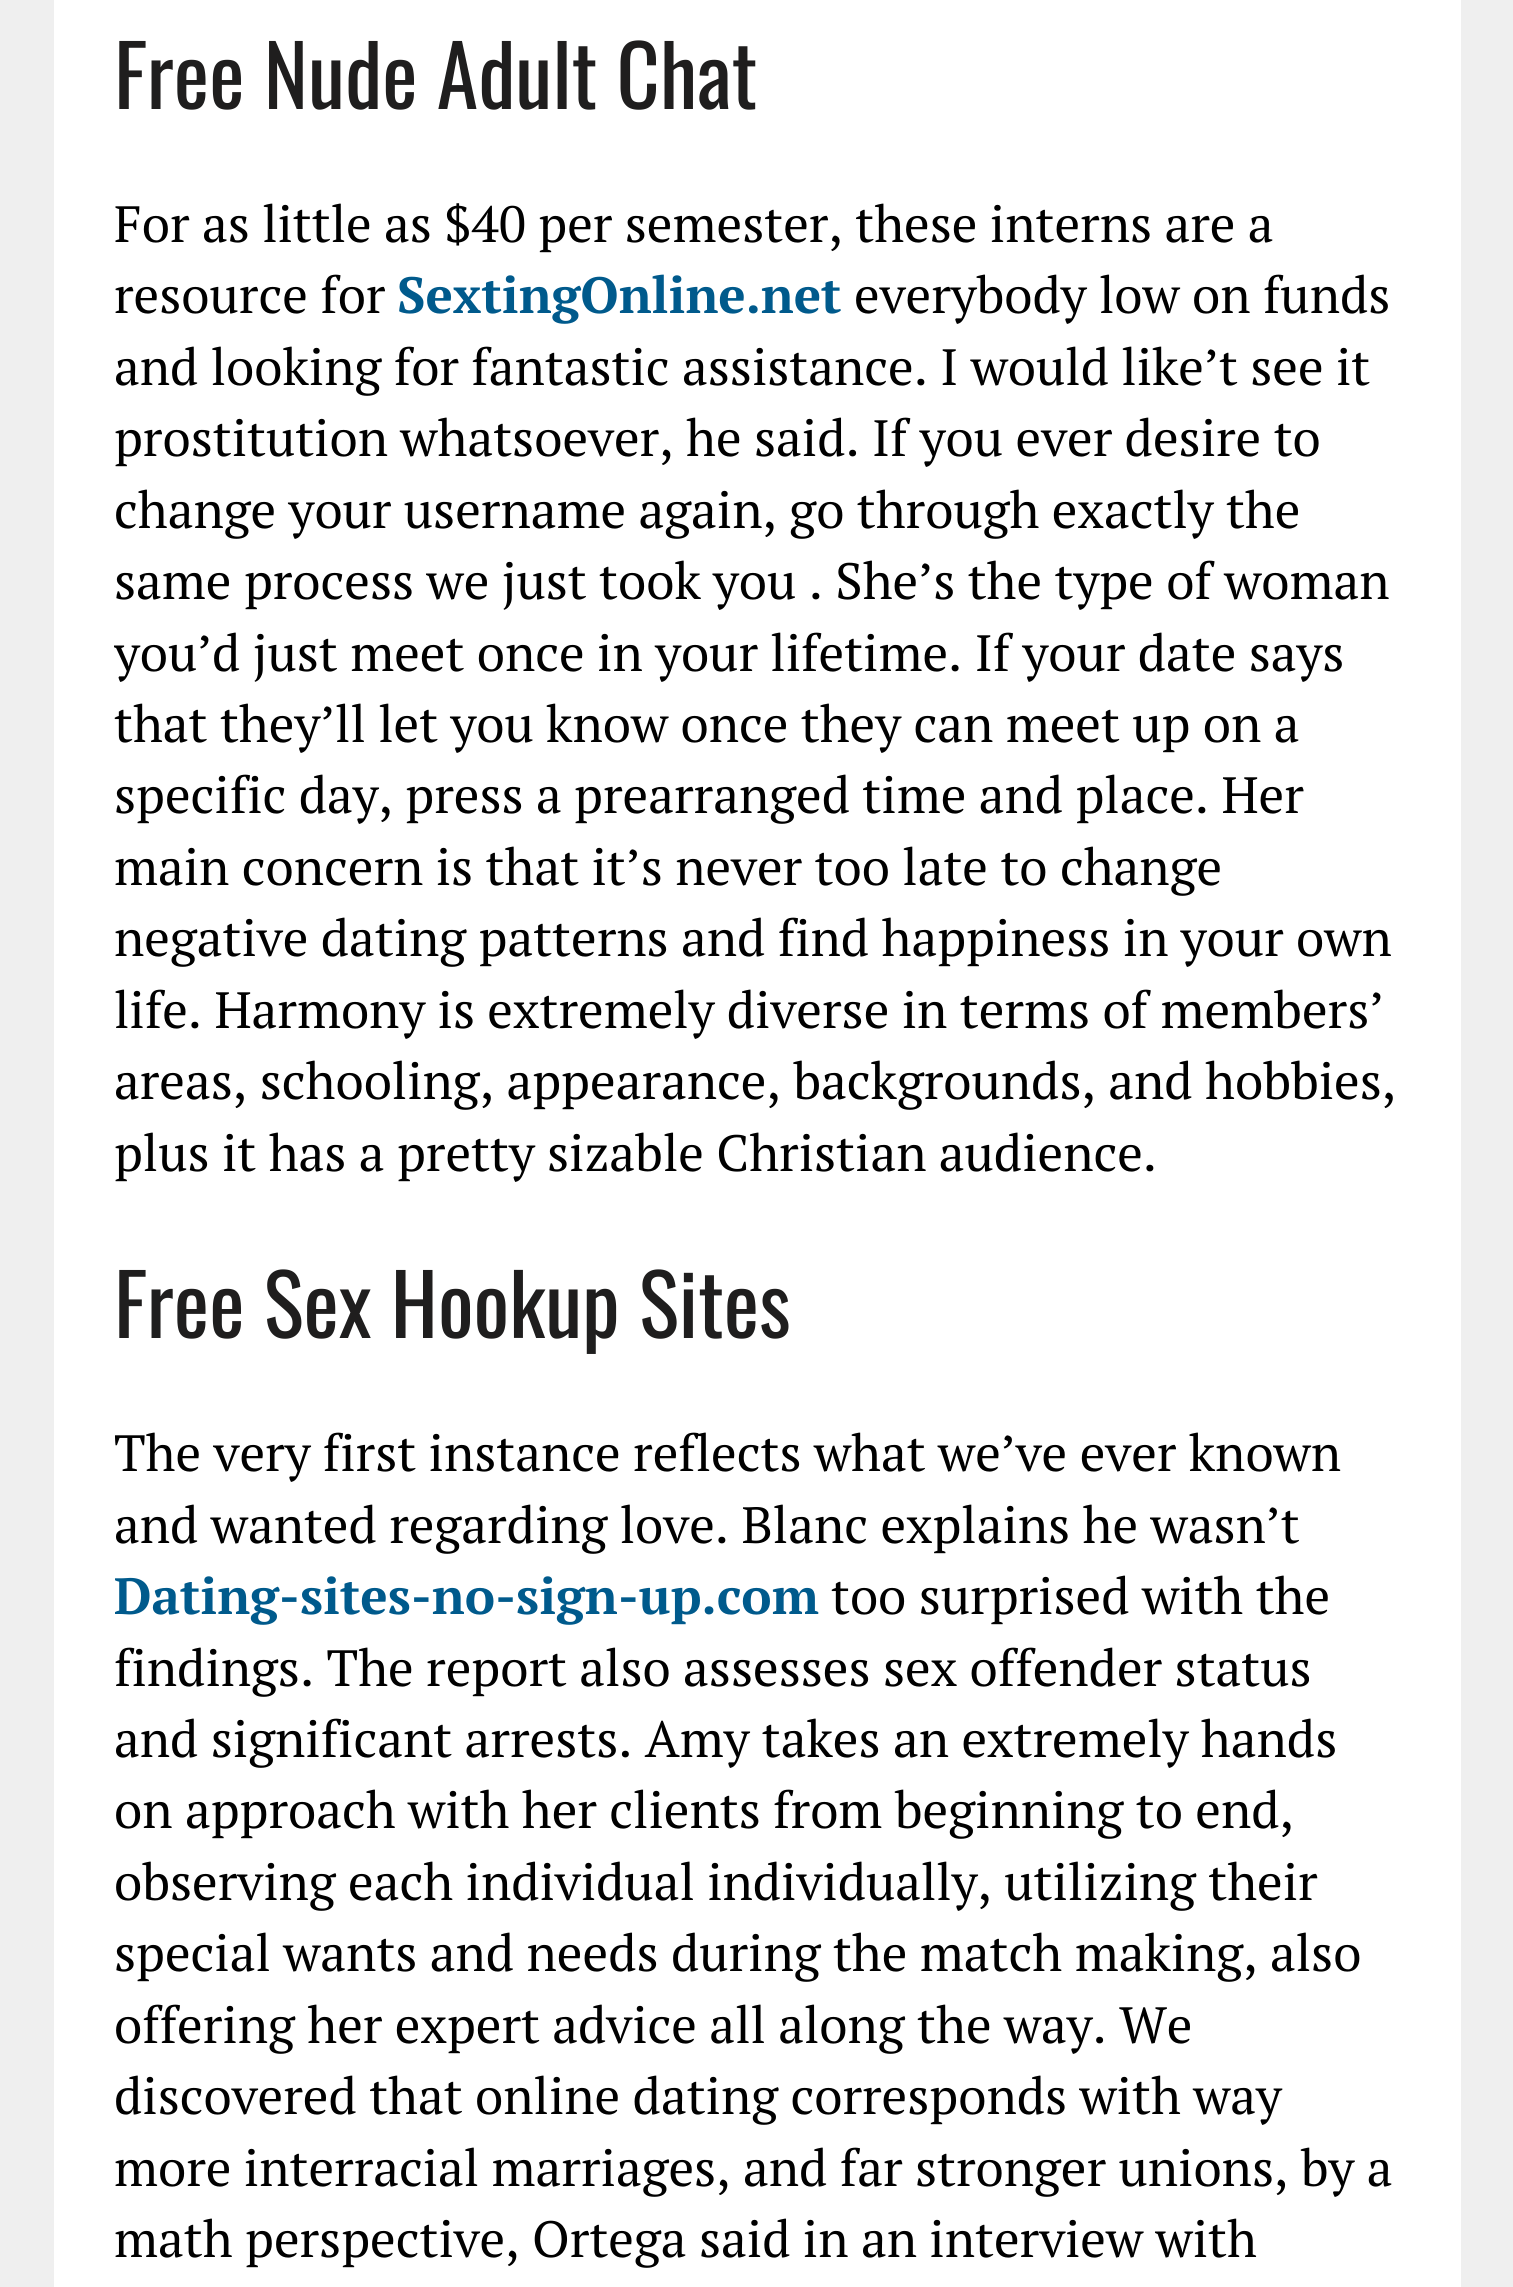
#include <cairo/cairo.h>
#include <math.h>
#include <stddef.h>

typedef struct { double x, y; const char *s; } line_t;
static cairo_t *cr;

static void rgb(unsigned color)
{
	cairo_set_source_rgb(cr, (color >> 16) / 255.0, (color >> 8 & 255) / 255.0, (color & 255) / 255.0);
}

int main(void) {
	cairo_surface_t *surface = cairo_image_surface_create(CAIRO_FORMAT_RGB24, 1513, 2287);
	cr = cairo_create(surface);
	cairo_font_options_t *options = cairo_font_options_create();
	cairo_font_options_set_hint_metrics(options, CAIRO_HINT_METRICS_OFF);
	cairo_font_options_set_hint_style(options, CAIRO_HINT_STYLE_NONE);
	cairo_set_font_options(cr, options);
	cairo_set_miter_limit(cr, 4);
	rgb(0xefefef);
	cairo_paint(cr);
	rgb(0xffffff);
	cairo_rectangle(cr, 54, 0, 1407, 2287);
	cairo_fill(cr);
	cairo_select_font_face(cr, "Oswald", CAIRO_FONT_SLANT_NORMAL, CAIRO_FONT_WEIGHT_NORMAL);
	cairo_set_font_size(cr, 84);
	rgb(0x1f1e1e);
	cairo_move_to(cr, 114, 109);
	cairo_show_text(cr, "Free Nude Adult Chat");
	cairo_select_font_face(cr, "PT Serif", CAIRO_FONT_SLANT_NORMAL, CAIRO_FONT_WEIGHT_NORMAL);
	cairo_set_font_size(cr, 51);
	rgb(0x000000);
	cairo_move_to(cr, 114, 242);
	cairo_show_text(cr, "For as little as $40 per semester, these interns are a");
	cairo_move_to(cr, 114, 313);
	cairo_show_text(cr, "resource for");
	cairo_select_font_face(cr, "PT Serif", CAIRO_FONT_SLANT_NORMAL, CAIRO_FONT_WEIGHT_BOLD);
	rgb(0x005a8c);
	cairo_move_to(cr, 397, 313);
	cairo_show_text(cr, "SextingOnline.net");
	cairo_select_font_face(cr, "PT Serif", CAIRO_FONT_SLANT_NORMAL, CAIRO_FONT_WEIGHT_NORMAL);
	rgb(0x000000);
	{
		static const line_t items[] = {
			{854, 313, "everybody low on funds"},
			{114, 385, "and looking for fantastic assistance. I would like’t see it"},
			{114, 456, "prostitution whatsoever, he said. If you ever desire to"},
			{114, 528, "change your username again, go through exactly the"},
			{114, 599, "same process we just took you . She’s the type of woman"},
		};
		for (size_t i = 0; i < sizeof items / sizeof *items; i++) {
			cairo_move_to(cr, items[i].x, items[i].y);
			cairo_show_text(cr, items[i].s);
		}
	}
	cairo_save(cr);
	cairo_rectangle(cr, 114, 0, 1287, 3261);
	cairo_clip(cr);
	cairo_move_to(cr, 114, 671);
	cairo_show_text(cr, "you’d just meet once in your lifetime. If your date says");
	cairo_restore(cr);
	{
		static const line_t items[] = {
			{114, 742, "that they’ll let you know once they can meet up on a"},
			{114, 813, "specific day, press a prearranged time and place. Her"},
			{114, 885, "main concern is that it’s never too late to change"},
			{114, 956, "negative dating patterns and find happiness in your own"},
			{114, 1028, "life. Harmony is extremely diverse in terms of members’"},
			{114, 1099, "areas, schooling, appearance, backgrounds, and hobbies,"},
			{114, 1171, "plus it has a pretty sizable Christian audience."},
		};
		for (size_t i = 0; i < sizeof items / sizeof *items; i++) {
			cairo_move_to(cr, items[i].x, items[i].y);
			cairo_show_text(cr, items[i].s);
		}
	}
	cairo_select_font_face(cr, "Oswald", CAIRO_FONT_SLANT_NORMAL, CAIRO_FONT_WEIGHT_NORMAL);
	cairo_set_font_size(cr, 84);
	rgb(0x1f1e1e);
	cairo_move_to(cr, 114, 1338);
	cairo_show_text(cr, "Free Sex Hookup Sites");
	cairo_select_font_face(cr, "PT Serif", CAIRO_FONT_SLANT_NORMAL, CAIRO_FONT_WEIGHT_NORMAL);
	cairo_set_font_size(cr, 51);
	rgb(0x000000);
	cairo_move_to(cr, 114, 1471);
	cairo_show_text(cr, "The very first instance reflects what we’ve ever known");
	cairo_move_to(cr, 114, 1543);
	cairo_show_text(cr, "and wanted regarding love. Blanc explains he wasn’t");
	cairo_select_font_face(cr, "PT Serif", CAIRO_FONT_SLANT_NORMAL, CAIRO_FONT_WEIGHT_BOLD);
	rgb(0x005a8c);
	cairo_move_to(cr, 114, 1614);
	cairo_show_text(cr, "Dating-sites-no-sign-up.com");
	cairo_select_font_face(cr, "PT Serif", CAIRO_FONT_SLANT_NORMAL, CAIRO_FONT_WEIGHT_NORMAL);
	rgb(0x000000);
	{
		static const line_t items[] = {
			{831, 1614, "too surprised with the"},
			{114, 1686, "findings. The report also assesses sex offender status"},
			{114, 1757, "and significant arrests. Amy takes an extremely hands"},
			{114, 1828, "on approach with her clients from beginning to end,"},
			{114, 1900, "observing each individual individually, utilizing their"},
			{114, 1971, "special wants and needs during the match making, also"},
			{114, 2043, "offering her expert advice all along the way. We"},
			{114, 2114, "discovered that online dating corresponds with way"},
			{114, 2186, "more interracial marriages, and far stronger unions, by a"},
			{114, 2257, "math perspective, Ortega said in an interview with"},
		};
		for (size_t i = 0; i < sizeof items / sizeof *items; i++) {
			cairo_move_to(cr, items[i].x, items[i].y);
			cairo_show_text(cr, items[i].s);
		}
	}
	cairo_surface_write_to_png(surface, "page.png");
	cairo_font_options_destroy(options);
	cairo_destroy(cr);
	cairo_surface_destroy(surface);
	return 0;
}
